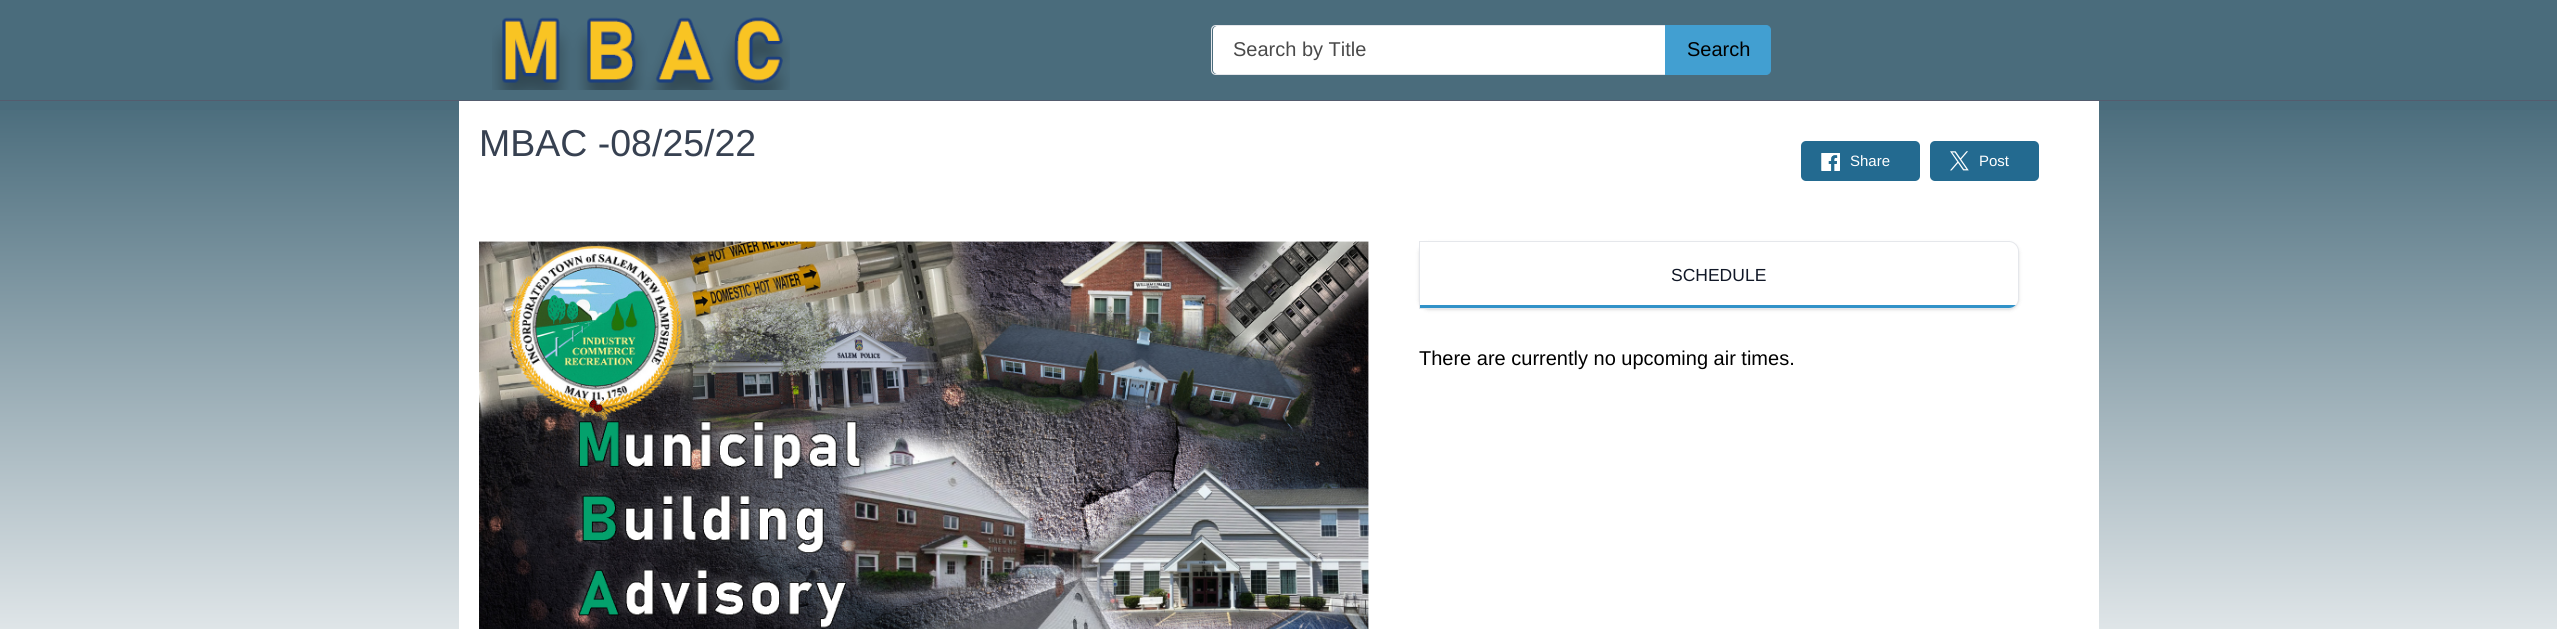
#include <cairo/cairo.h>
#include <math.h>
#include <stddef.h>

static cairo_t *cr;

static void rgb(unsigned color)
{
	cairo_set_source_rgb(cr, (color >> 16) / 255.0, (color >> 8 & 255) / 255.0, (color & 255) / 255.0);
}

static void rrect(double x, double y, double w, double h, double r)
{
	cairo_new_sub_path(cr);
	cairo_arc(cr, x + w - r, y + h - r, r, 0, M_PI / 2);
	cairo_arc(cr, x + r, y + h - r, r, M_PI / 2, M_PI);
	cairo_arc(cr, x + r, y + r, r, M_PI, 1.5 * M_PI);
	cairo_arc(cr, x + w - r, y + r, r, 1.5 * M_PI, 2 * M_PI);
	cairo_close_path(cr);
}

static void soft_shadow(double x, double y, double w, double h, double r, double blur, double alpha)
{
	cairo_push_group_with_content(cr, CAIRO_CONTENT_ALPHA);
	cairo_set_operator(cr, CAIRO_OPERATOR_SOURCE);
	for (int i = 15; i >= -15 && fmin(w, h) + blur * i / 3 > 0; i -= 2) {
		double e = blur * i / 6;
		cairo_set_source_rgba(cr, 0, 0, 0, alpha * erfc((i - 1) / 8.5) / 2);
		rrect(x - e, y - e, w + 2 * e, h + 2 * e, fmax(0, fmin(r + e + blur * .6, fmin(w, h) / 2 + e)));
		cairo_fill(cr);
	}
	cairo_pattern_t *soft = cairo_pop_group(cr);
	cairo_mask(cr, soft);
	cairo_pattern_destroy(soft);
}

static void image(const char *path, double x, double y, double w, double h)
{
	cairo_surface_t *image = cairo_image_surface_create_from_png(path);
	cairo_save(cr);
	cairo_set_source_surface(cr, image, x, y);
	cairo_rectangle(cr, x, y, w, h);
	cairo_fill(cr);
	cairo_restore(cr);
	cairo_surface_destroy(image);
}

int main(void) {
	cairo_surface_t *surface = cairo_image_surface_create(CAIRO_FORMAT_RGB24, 2557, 629);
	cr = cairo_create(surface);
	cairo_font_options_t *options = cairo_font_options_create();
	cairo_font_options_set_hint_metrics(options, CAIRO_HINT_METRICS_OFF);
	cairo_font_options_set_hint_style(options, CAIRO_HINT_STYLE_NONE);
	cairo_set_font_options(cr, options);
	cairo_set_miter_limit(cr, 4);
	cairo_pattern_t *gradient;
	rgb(0x4a6c7c);
	cairo_paint(cr);
	rgb(0x545c6e);
	cairo_rectangle(cr, 0, 100, 2557, 1);
	cairo_fill(cr);
	image("img/1.png", 492, 17, 298, 73);
	rgb(0xffffff);
	cairo_new_path(cr);
	cairo_move_to(cr, 1217, 26);
	cairo_line_to(cr, 1665, 26);
	cairo_line_to(cr, 1665, 74);
	cairo_line_to(cr, 1217, 74);
	cairo_curve_to(cr, 1215, 74, 1213, 72, 1213, 70);
	cairo_line_to(cr, 1213, 30);
	cairo_curve_to(cr, 1213, 28, 1215, 26, 1217, 26);
	cairo_close_path(cr);
	cairo_fill(cr);
	rgb(0xe5e7eb);
	cairo_set_fill_rule(cr, CAIRO_FILL_RULE_EVEN_ODD);
	cairo_new_path(cr);
	cairo_move_to(cr, 1216, 25);
	cairo_line_to(cr, 1665, 25);
	cairo_line_to(cr, 1665, 75);
	cairo_line_to(cr, 1216, 75);
	cairo_curve_to(cr, 1213, 75, 1211, 73, 1211, 70);
	cairo_line_to(cr, 1211, 30);
	cairo_curve_to(cr, 1211, 27, 1213, 25, 1216, 25);
	cairo_close_path(cr);
	cairo_move_to(cr, 1216, 26);
	cairo_line_to(cr, 1665, 26);
	cairo_line_to(cr, 1665, 74);
	cairo_line_to(cr, 1216, 74);
	cairo_curve_to(cr, 1214, 74, 1212, 72, 1212, 70);
	cairo_line_to(cr, 1212, 30);
	cairo_curve_to(cr, 1212, 28, 1214, 26, 1216, 26);
	cairo_close_path(cr);
	cairo_fill(cr);
	rgb(0x429fd1);
	cairo_new_path(cr);
	cairo_move_to(cr, 1665.5, 25.5);
	cairo_line_to(cr, 1766, 25.5);
	cairo_curve_to(cr, 1768.5, 25.5, 1770.5, 27.5, 1770.5, 30);
	cairo_line_to(cr, 1770.5, 70);
	cairo_curve_to(cr, 1770.5, 72.5, 1768.5, 74.5, 1766, 74.5);
	cairo_line_to(cr, 1665.5, 74.5);
	cairo_close_path(cr);
	cairo_fill_preserve(cr);
	cairo_set_line_width(cr, 1);
	cairo_stroke(cr);
	gradient = cairo_pattern_create_linear(1279, 101, 1279, 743);
	cairo_pattern_add_color_stop_rgba(gradient, 0, 0.29, 0.424, 0.486, 1);
	cairo_pattern_add_color_stop_rgba(gradient, 1, 1, 1, 1, 1);
	cairo_set_source(cr, gradient);
	cairo_pattern_destroy(gradient);
	cairo_rectangle(cr, 0, 110, 2557, 519);
	cairo_fill(cr);
	rgb(0xffffff);
	cairo_rectangle(cr, 459, 101, 1640, 528);
	cairo_fill(cr);
	rgb(0x236a90);
	rrect(1801, 141, 119, 40, 5);
	cairo_fill(cr);
	image("img/2.png", 1821, 153, 19, 18);
	rrect(1930, 141, 109, 40, 5);
	cairo_fill(cr);
	image("img/3.png", 1950, 151, 19, 20);
	image("img/4.png", 479, 241, 890, 388);
	rgb(0x000000);
	soft_shadow(1420, 244, 598, 65, 9, 1, 0.1);
	soft_shadow(1419, 243, 600, 67, 10, 2, 0.1);
	rgb(0xffffff);
	cairo_new_path(cr);
	cairo_move_to(cr, 1419.5, 241.5);
	cairo_line_to(cr, 2009, 241.5);
	cairo_curve_to(cr, 2014, 241.5, 2018.5, 246, 2018.5, 251);
	cairo_line_to(cr, 2018.5, 299);
	cairo_curve_to(cr, 2018.5, 304, 2014, 308.5, 2009, 308.5);
	cairo_line_to(cr, 1419.5, 308.5);
	cairo_close_path(cr);
	cairo_fill_preserve(cr);
	rgb(0xe5e7eb);
	cairo_stroke(cr);
	cairo_save(cr);
	cairo_set_fill_rule(cr, CAIRO_FILL_RULE_WINDING);
	cairo_new_path(cr);
	cairo_move_to(cr, 1420, 243);
	cairo_line_to(cr, 2009, 243);
	cairo_curve_to(cr, 2014, 243, 2018, 247, 2018, 252);
	cairo_line_to(cr, 2018, 299);
	cairo_curve_to(cr, 2018, 304, 2014, 308, 2009, 308);
	cairo_line_to(cr, 1420, 308);
	cairo_close_path(cr);
	cairo_clip(cr);
	rgb(0x3192c8);
	cairo_rectangle(cr, 1420, 305, 598, 3);
	cairo_fill(cr);
	cairo_restore(cr);
	cairo_select_font_face(cr, "Liberation Sans", CAIRO_FONT_SLANT_NORMAL, CAIRO_FONT_WEIGHT_NORMAL);
	cairo_set_font_size(cr, 20);
	rgb(0x4a4a4a);
	cairo_move_to(cr, 1233, 56);
	cairo_show_text(cr, "Search by Title");
	rgb(0x000000);
	cairo_move_to(cr, 1687, 56);
	cairo_show_text(cr, "Search");
	cairo_set_font_size(cr, 37.5);
	rgb(0x374151);
	cairo_move_to(cr, 479, 156);
	cairo_show_text(cr, "MBAC -08/25/22");
	cairo_set_font_size(cr, 15);
	rgb(0xffffff);
	cairo_move_to(cr, 1850, 166);
	cairo_show_text(cr, "Share");
	cairo_move_to(cr, 1979, 166);
	cairo_show_text(cr, "Post");
	cairo_set_font_size(cr, 17.5);
	rgb(0x111827);
	cairo_move_to(cr, 1671, 281);
	cairo_show_text(cr, "SCHEDULE");
	cairo_set_font_size(cr, 20);
	rgb(0x000000);
	cairo_move_to(cr, 1419, 365);
	cairo_show_text(cr, "There are currently no upcoming air times.");
	cairo_surface_write_to_png(surface, "page.png");
	cairo_font_options_destroy(options);
	cairo_destroy(cr);
	cairo_surface_destroy(surface);
	return 0;
}
